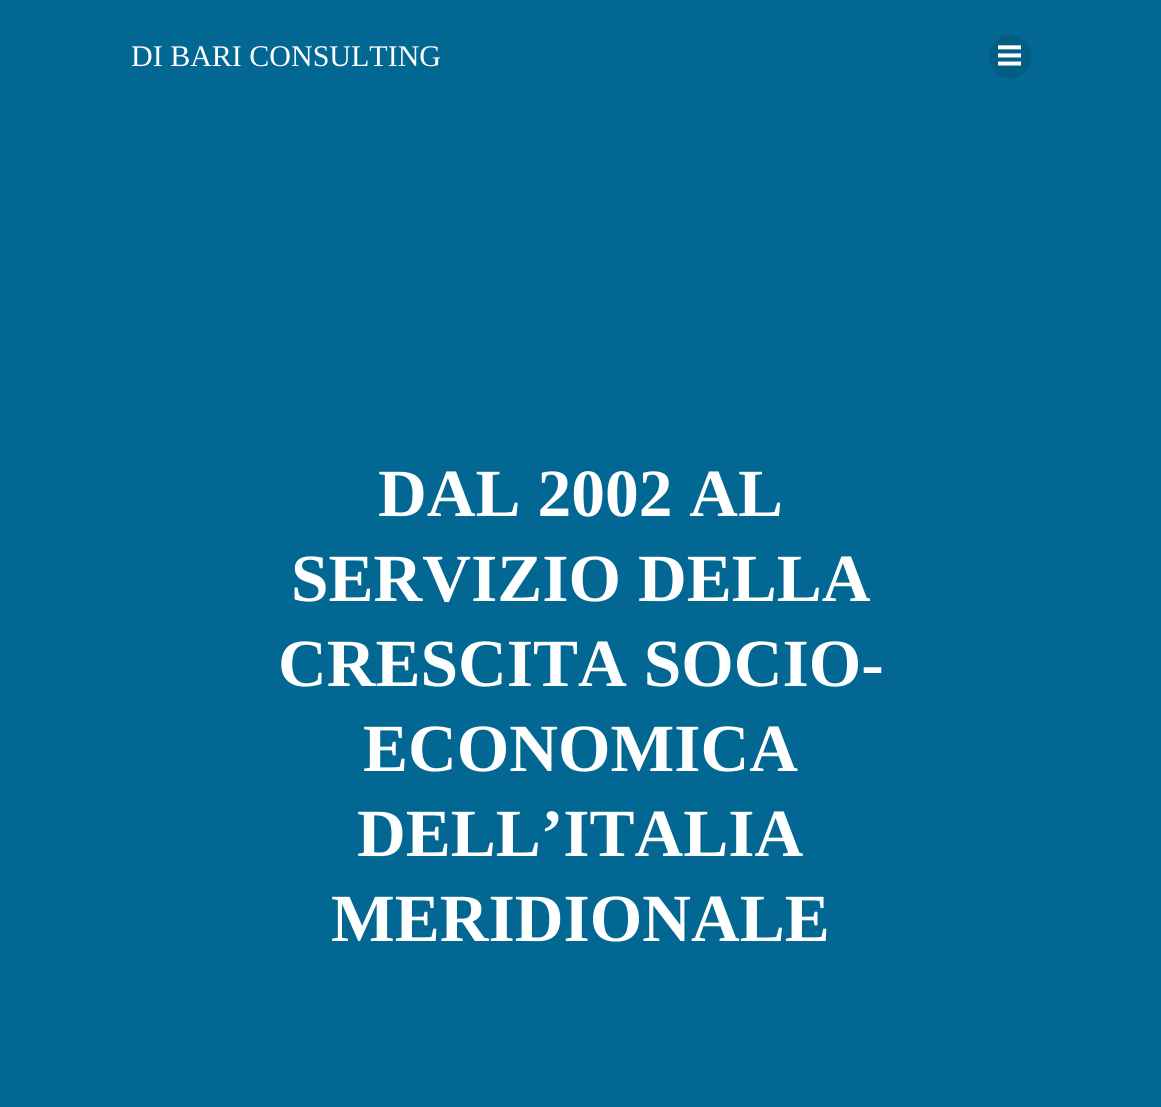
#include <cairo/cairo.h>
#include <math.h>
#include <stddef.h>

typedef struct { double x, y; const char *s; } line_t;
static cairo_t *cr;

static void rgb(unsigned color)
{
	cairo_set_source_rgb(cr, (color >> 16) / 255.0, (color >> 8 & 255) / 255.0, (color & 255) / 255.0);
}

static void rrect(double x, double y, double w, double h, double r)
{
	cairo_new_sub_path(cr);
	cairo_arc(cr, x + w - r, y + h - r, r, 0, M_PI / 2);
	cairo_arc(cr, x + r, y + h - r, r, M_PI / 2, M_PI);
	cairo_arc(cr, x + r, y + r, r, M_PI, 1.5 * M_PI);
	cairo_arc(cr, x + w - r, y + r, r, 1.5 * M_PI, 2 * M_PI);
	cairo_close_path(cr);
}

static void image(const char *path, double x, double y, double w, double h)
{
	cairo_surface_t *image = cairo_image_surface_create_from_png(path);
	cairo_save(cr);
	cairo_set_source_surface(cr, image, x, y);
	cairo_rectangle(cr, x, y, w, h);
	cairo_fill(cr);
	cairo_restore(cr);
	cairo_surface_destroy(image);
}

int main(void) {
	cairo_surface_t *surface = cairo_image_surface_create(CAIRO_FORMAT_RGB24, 1161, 1107);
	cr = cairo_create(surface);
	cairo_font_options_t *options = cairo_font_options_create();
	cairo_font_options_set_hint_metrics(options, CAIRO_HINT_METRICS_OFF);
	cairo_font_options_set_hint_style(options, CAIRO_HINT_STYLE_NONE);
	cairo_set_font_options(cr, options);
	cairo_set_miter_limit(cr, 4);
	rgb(0x026792);
	cairo_paint(cr);
	rgb(0x025d83);
	rrect(989, 35, 42, 43, 21);
	cairo_fill(cr);
	image("img/1.png", 998, 45, 23, 21);
	cairo_select_font_face(cr, "Liberation Serif", CAIRO_FONT_SLANT_NORMAL, CAIRO_FONT_WEIGHT_NORMAL);
	cairo_set_font_size(cr, 30);
	rgb(0xffffff);
	cairo_move_to(cr, 131, 66);
	cairo_show_text(cr, "DI BARI CONSULTING");
	cairo_select_font_face(cr, "Liberation Serif", CAIRO_FONT_SLANT_NORMAL, CAIRO_FONT_WEIGHT_BOLD);
	cairo_set_font_size(cr, 67.5);
	{
		static const line_t items[] = {
			{378, 516, "DAL 2002 AL"},
			{291, 601, "SERVIZIO DELLA"},
			{278, 686, "CRESCITA SOCIO-"},
			{363, 771, "ECONOMICA"},
			{357, 856, "DELL’ITALIA"},
			{331, 941, "MERIDIONALE"},
		};
		for (size_t i = 0; i < sizeof items / sizeof *items; i++) {
			cairo_move_to(cr, items[i].x, items[i].y);
			cairo_show_text(cr, items[i].s);
		}
	}
	cairo_surface_write_to_png(surface, "page.png");
	cairo_font_options_destroy(options);
	cairo_destroy(cr);
	cairo_surface_destroy(surface);
	return 0;
}
